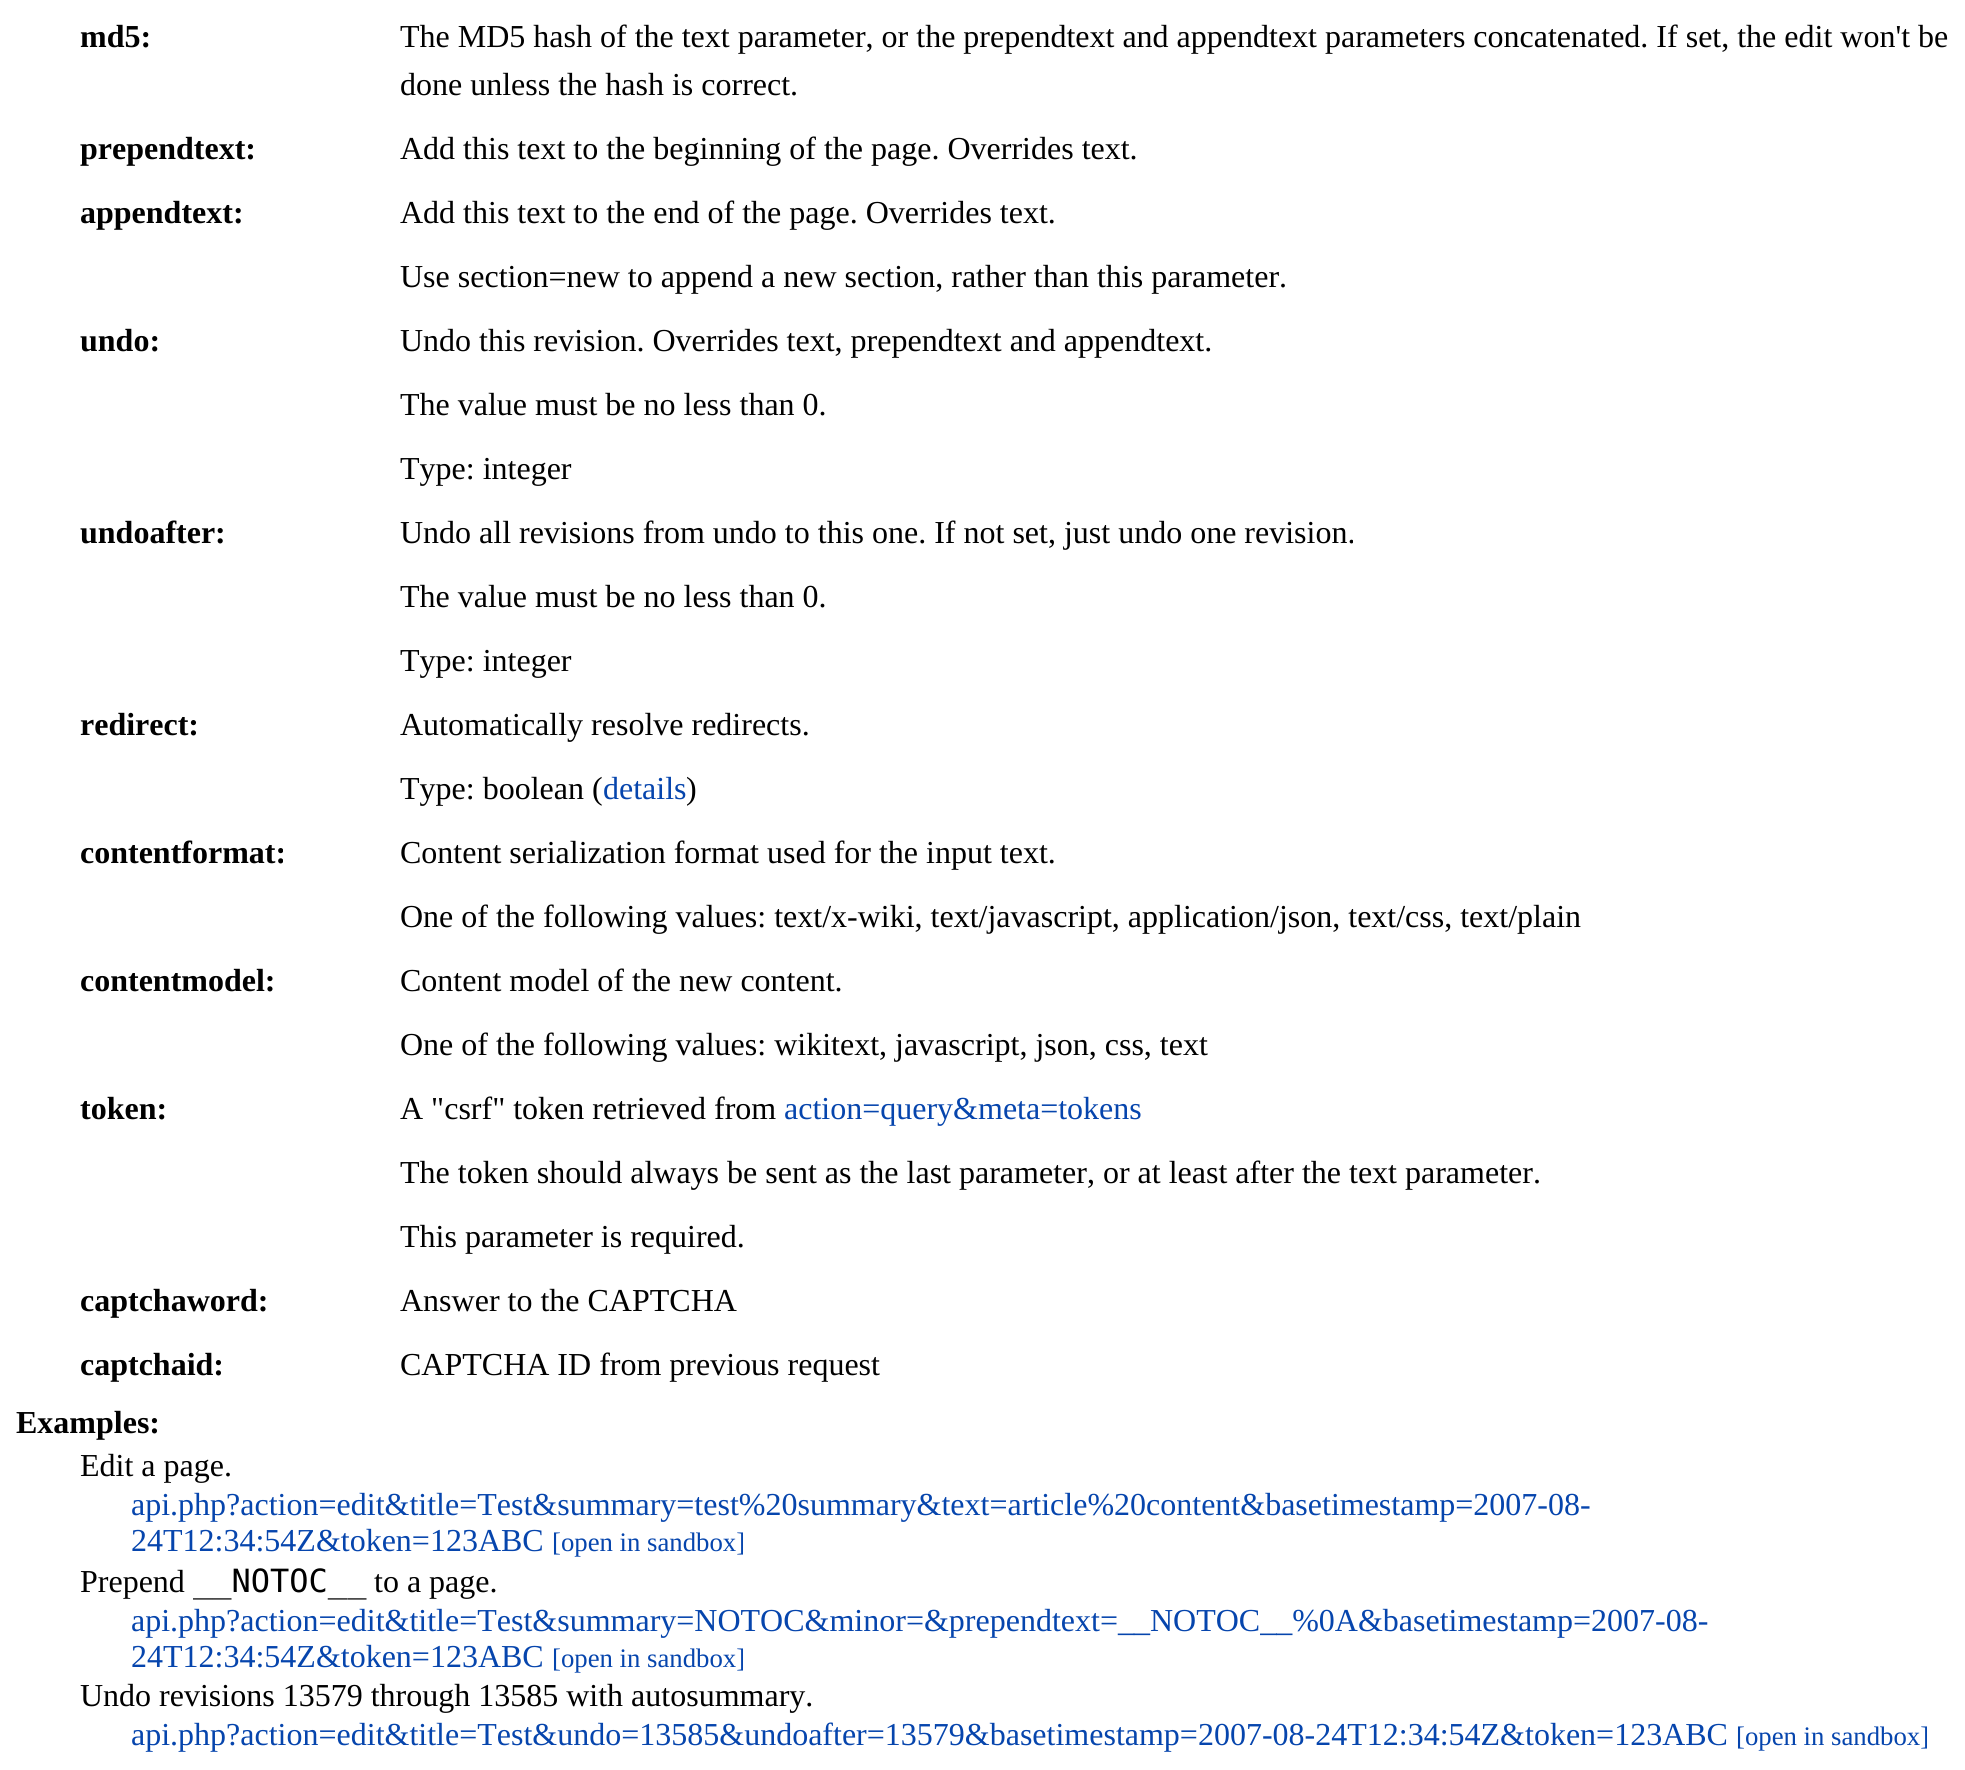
#include <cairo/cairo.h>
#include <math.h>
#include <stddef.h>

typedef struct { double x, y; const char *s; } line_t;
static cairo_t *cr;

static void rgb(unsigned color)
{
	cairo_set_source_rgb(cr, (color >> 16) / 255.0, (color >> 8 & 255) / 255.0, (color & 255) / 255.0);
}

int main(void) {
	cairo_surface_t *surface = cairo_image_surface_create(CAIRO_FORMAT_RGB24, 1965, 1770);
	cr = cairo_create(surface);
	cairo_font_options_t *options = cairo_font_options_create();
	cairo_font_options_set_hint_metrics(options, CAIRO_HINT_METRICS_OFF);
	cairo_font_options_set_hint_style(options, CAIRO_HINT_STYLE_NONE);
	cairo_set_font_options(cr, options);
	cairo_set_miter_limit(cr, 4);
	rgb(0xffffff);
	cairo_paint(cr);
	cairo_select_font_face(cr, "Liberation Serif", CAIRO_FONT_SLANT_NORMAL, CAIRO_FONT_WEIGHT_BOLD);
	cairo_set_font_size(cr, 32);
	rgb(0x000000);
	cairo_move_to(cr, 80, 47);
	cairo_show_text(cr, "md5:");
	cairo_select_font_face(cr, "Liberation Serif", CAIRO_FONT_SLANT_NORMAL, CAIRO_FONT_WEIGHT_NORMAL);
	cairo_move_to(cr, 400, 47);
	cairo_show_text(cr, "The MD5 hash of the text parameter, or the prependtext and appendtext parameters concatenated. If set, the edit won't be");
	cairo_move_to(cr, 400, 95);
	cairo_show_text(cr, "done unless the hash is correct.");
	cairo_select_font_face(cr, "Liberation Serif", CAIRO_FONT_SLANT_NORMAL, CAIRO_FONT_WEIGHT_BOLD);
	cairo_move_to(cr, 80, 159);
	cairo_show_text(cr, "prependtext:");
	cairo_select_font_face(cr, "Liberation Serif", CAIRO_FONT_SLANT_NORMAL, CAIRO_FONT_WEIGHT_NORMAL);
	cairo_move_to(cr, 400, 159);
	cairo_show_text(cr, "Add this text to the beginning of the page. Overrides text.");
	cairo_select_font_face(cr, "Liberation Serif", CAIRO_FONT_SLANT_NORMAL, CAIRO_FONT_WEIGHT_BOLD);
	cairo_move_to(cr, 80, 223);
	cairo_show_text(cr, "appendtext:");
	cairo_select_font_face(cr, "Liberation Serif", CAIRO_FONT_SLANT_NORMAL, CAIRO_FONT_WEIGHT_NORMAL);
	cairo_move_to(cr, 400, 223);
	cairo_show_text(cr, "Add this text to the end of the page. Overrides text.");
	cairo_move_to(cr, 400, 287);
	cairo_show_text(cr, "Use section=new to append a new section, rather than this parameter.");
	cairo_select_font_face(cr, "Liberation Serif", CAIRO_FONT_SLANT_NORMAL, CAIRO_FONT_WEIGHT_BOLD);
	cairo_move_to(cr, 80, 351);
	cairo_show_text(cr, "undo:");
	cairo_select_font_face(cr, "Liberation Serif", CAIRO_FONT_SLANT_NORMAL, CAIRO_FONT_WEIGHT_NORMAL);
	{
		static const line_t items[] = {
			{400, 351, "Undo this revision. Overrides text, prependtext and appendtext."},
			{400, 415, "The value must be no less than 0."},
			{400, 479, "Type: integer"},
		};
		for (size_t i = 0; i < sizeof items / sizeof *items; i++) {
			cairo_move_to(cr, items[i].x, items[i].y);
			cairo_show_text(cr, items[i].s);
		}
	}
	cairo_select_font_face(cr, "Liberation Serif", CAIRO_FONT_SLANT_NORMAL, CAIRO_FONT_WEIGHT_BOLD);
	cairo_move_to(cr, 80, 543);
	cairo_show_text(cr, "undoafter:");
	cairo_select_font_face(cr, "Liberation Serif", CAIRO_FONT_SLANT_NORMAL, CAIRO_FONT_WEIGHT_NORMAL);
	{
		static const line_t items[] = {
			{400, 543, "Undo all revisions from undo to this one. If not set, just undo one revision."},
			{400, 607, "The value must be no less than 0."},
			{400, 671, "Type: integer"},
		};
		for (size_t i = 0; i < sizeof items / sizeof *items; i++) {
			cairo_move_to(cr, items[i].x, items[i].y);
			cairo_show_text(cr, items[i].s);
		}
	}
	cairo_select_font_face(cr, "Liberation Serif", CAIRO_FONT_SLANT_NORMAL, CAIRO_FONT_WEIGHT_BOLD);
	cairo_move_to(cr, 80, 735);
	cairo_show_text(cr, "redirect:");
	cairo_select_font_face(cr, "Liberation Serif", CAIRO_FONT_SLANT_NORMAL, CAIRO_FONT_WEIGHT_NORMAL);
	cairo_move_to(cr, 400, 735);
	cairo_show_text(cr, "Automatically resolve redirects.");
	cairo_move_to(cr, 400, 799);
	cairo_show_text(cr, "Type: boolean (");
	rgb(0x0645ad);
	cairo_move_to(cr, 603, 799);
	cairo_show_text(cr, "details");
	rgb(0x000000);
	cairo_move_to(cr, 686, 799);
	cairo_show_text(cr, ")");
	cairo_select_font_face(cr, "Liberation Serif", CAIRO_FONT_SLANT_NORMAL, CAIRO_FONT_WEIGHT_BOLD);
	cairo_move_to(cr, 80, 863);
	cairo_show_text(cr, "contentformat:");
	cairo_select_font_face(cr, "Liberation Serif", CAIRO_FONT_SLANT_NORMAL, CAIRO_FONT_WEIGHT_NORMAL);
	cairo_move_to(cr, 400, 863);
	cairo_show_text(cr, "Content serialization format used for the input text.");
	cairo_move_to(cr, 400, 927);
	cairo_show_text(cr, "One of the following values: text/x-wiki, text/javascript, application/json, text/css, text/plain");
	cairo_select_font_face(cr, "Liberation Serif", CAIRO_FONT_SLANT_NORMAL, CAIRO_FONT_WEIGHT_BOLD);
	cairo_move_to(cr, 80, 991);
	cairo_show_text(cr, "contentmodel:");
	cairo_select_font_face(cr, "Liberation Serif", CAIRO_FONT_SLANT_NORMAL, CAIRO_FONT_WEIGHT_NORMAL);
	cairo_move_to(cr, 400, 991);
	cairo_show_text(cr, "Content model of the new content.");
	cairo_move_to(cr, 400, 1055);
	cairo_show_text(cr, "One of the following values: wikitext, javascript, json, css, text");
	cairo_select_font_face(cr, "Liberation Serif", CAIRO_FONT_SLANT_NORMAL, CAIRO_FONT_WEIGHT_BOLD);
	cairo_move_to(cr, 80, 1119);
	cairo_show_text(cr, "token:");
	cairo_select_font_face(cr, "Liberation Serif", CAIRO_FONT_SLANT_NORMAL, CAIRO_FONT_WEIGHT_NORMAL);
	cairo_move_to(cr, 400, 1119);
	cairo_show_text(cr, "A \"csrf\" token retrieved from");
	rgb(0x0645ad);
	cairo_move_to(cr, 784, 1119);
	cairo_show_text(cr, "action=query&meta=tokens");
	rgb(0x000000);
	cairo_move_to(cr, 400, 1183);
	cairo_show_text(cr, "The token should always be sent as the last parameter, or at least after the text parameter.");
	cairo_move_to(cr, 400, 1247);
	cairo_show_text(cr, "This parameter is required.");
	cairo_select_font_face(cr, "Liberation Serif", CAIRO_FONT_SLANT_NORMAL, CAIRO_FONT_WEIGHT_BOLD);
	cairo_move_to(cr, 80, 1311);
	cairo_show_text(cr, "captchaword:");
	cairo_select_font_face(cr, "Liberation Serif", CAIRO_FONT_SLANT_NORMAL, CAIRO_FONT_WEIGHT_NORMAL);
	cairo_move_to(cr, 400, 1311);
	cairo_show_text(cr, "Answer to the CAPTCHA");
	cairo_select_font_face(cr, "Liberation Serif", CAIRO_FONT_SLANT_NORMAL, CAIRO_FONT_WEIGHT_BOLD);
	cairo_move_to(cr, 80, 1375);
	cairo_show_text(cr, "captchaid:");
	cairo_select_font_face(cr, "Liberation Serif", CAIRO_FONT_SLANT_NORMAL, CAIRO_FONT_WEIGHT_NORMAL);
	cairo_move_to(cr, 400, 1375);
	cairo_show_text(cr, "CAPTCHA ID from previous request");
	cairo_select_font_face(cr, "Liberation Serif", CAIRO_FONT_SLANT_NORMAL, CAIRO_FONT_WEIGHT_BOLD);
	cairo_move_to(cr, 16, 1433);
	cairo_show_text(cr, "Examples:");
	cairo_select_font_face(cr, "Liberation Serif", CAIRO_FONT_SLANT_NORMAL, CAIRO_FONT_WEIGHT_NORMAL);
	cairo_move_to(cr, 80, 1476);
	cairo_show_text(cr, "Edit a page.");
	rgb(0x0645ad);
	cairo_move_to(cr, 131, 1515);
	cairo_show_text(cr, "api.php?action=edit&title=Test&summary=test%20summary&text=article%20content&basetimestamp=2007-08-");
	cairo_move_to(cr, 131, 1551);
	cairo_show_text(cr, "24T12:34:54Z&token=123ABC");
	cairo_set_font_size(cr, 26.75);
	cairo_move_to(cr, 552, 1551);
	cairo_show_text(cr, "[open in sandbox]");
	cairo_set_font_size(cr, 32);
	rgb(0x000000);
	cairo_move_to(cr, 80, 1592);
	cairo_show_text(cr, "Prepend");
	cairo_select_font_face(cr, "DejaVu Sans Mono", CAIRO_FONT_SLANT_NORMAL, CAIRO_FONT_WEIGHT_NORMAL);
	cairo_move_to(cr, 193, 1592);
	cairo_show_text(cr, "__NOTOC__");
	cairo_select_font_face(cr, "Liberation Serif", CAIRO_FONT_SLANT_NORMAL, CAIRO_FONT_WEIGHT_NORMAL);
	cairo_move_to(cr, 374, 1592);
	cairo_show_text(cr, "to a page.");
	rgb(0x0645ad);
	cairo_move_to(cr, 131, 1631);
	cairo_show_text(cr, "api.php?action=edit&title=Test&summary=NOTOC&minor=&prependtext=__NOTOC__%0A&basetimestamp=2007-08-");
	cairo_move_to(cr, 131, 1667);
	cairo_show_text(cr, "24T12:34:54Z&token=123ABC");
	cairo_set_font_size(cr, 26.75);
	cairo_move_to(cr, 552, 1667);
	cairo_show_text(cr, "[open in sandbox]");
	cairo_set_font_size(cr, 32);
	rgb(0x000000);
	cairo_move_to(cr, 80, 1706);
	cairo_show_text(cr, "Undo revisions 13579 through 13585 with autosummary.");
	rgb(0x0645ad);
	cairo_move_to(cr, 131, 1745);
	cairo_show_text(cr, "api.php?action=edit&title=Test&undo=13585&undoafter=13579&basetimestamp=2007-08-24T12:34:54Z&token=123ABC");
	cairo_set_font_size(cr, 26.75);
	cairo_move_to(cr, 1736, 1745);
	cairo_show_text(cr, "[open in sandbox]");
	cairo_surface_write_to_png(surface, "page.png");
	cairo_font_options_destroy(options);
	cairo_destroy(cr);
	cairo_surface_destroy(surface);
	return 0;
}
